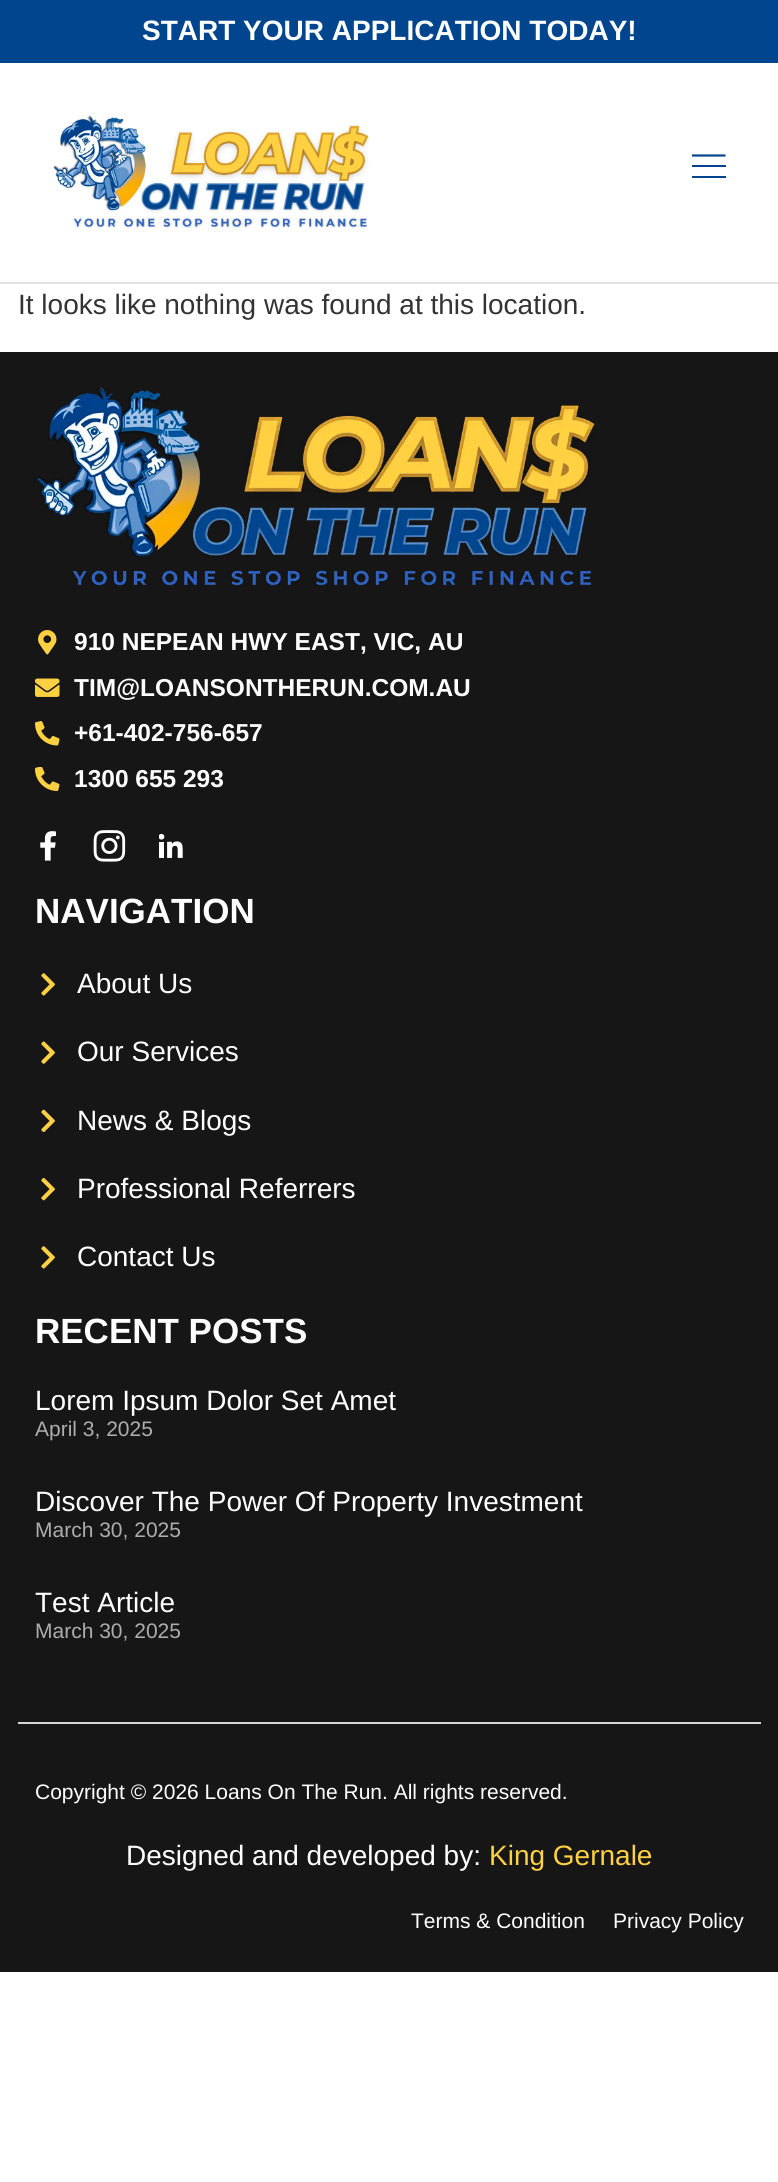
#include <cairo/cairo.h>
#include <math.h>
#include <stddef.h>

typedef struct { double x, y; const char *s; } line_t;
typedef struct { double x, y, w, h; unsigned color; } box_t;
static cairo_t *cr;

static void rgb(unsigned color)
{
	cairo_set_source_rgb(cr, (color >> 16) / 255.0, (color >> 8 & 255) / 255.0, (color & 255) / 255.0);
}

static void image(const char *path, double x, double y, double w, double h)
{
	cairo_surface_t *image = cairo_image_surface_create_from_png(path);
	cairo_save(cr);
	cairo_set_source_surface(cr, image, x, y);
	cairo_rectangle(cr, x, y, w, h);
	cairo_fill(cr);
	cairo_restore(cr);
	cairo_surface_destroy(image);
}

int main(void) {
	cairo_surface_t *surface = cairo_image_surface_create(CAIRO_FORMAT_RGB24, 778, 2182);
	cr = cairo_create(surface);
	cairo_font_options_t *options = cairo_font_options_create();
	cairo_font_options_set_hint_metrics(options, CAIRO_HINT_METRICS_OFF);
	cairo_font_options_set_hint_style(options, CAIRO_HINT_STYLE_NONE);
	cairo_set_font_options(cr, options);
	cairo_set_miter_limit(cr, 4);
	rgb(0xffffff);
	cairo_paint(cr);
	rgb(0x00458d);
	cairo_rectangle(cr, 0, 0, 778, 63);
	cairo_fill(cr);
	rgb(0xe2e2e2);
	cairo_rectangle(cr, 0, 282, 778, 2);
	cairo_fill(cr);
	image("img/1.png", 53, 115, 316, 113);
	cairo_new_path(cr);
	cairo_move_to(cr, 692, 155.5);
	cairo_line_to(cr, 725.5, 155.5);
	rgb(0x00458d);
	cairo_set_line_width(cr, 2.2);
	cairo_stroke(cr);
	{
		static const box_t items[] = {
			{692, 165, 34, 2, 0x00458d},
			{692, 176, 34, 2, 0x00458d},
			{0, 352, 778, 1620, 0x161616},
		};
		for (size_t i = 0; i < sizeof items / sizeof *items; i++) {
			rgb(items[i].color);
			cairo_rectangle(cr, items[i].x, items[i].y, items[i].w, items[i].h);
			cairo_fill(cr);
		}
	}
	image("img/2.png", 37, 387, 558, 199);
	image("img/3.png", 38, 630, 19, 25);
	image("img/4.png", 35, 678, 25, 19);
	image("img/5.png", 35, 721, 25, 25);
	image("img/6.png", 35, 767, 25, 24);
	image("img/7.png", 40, 831, 16, 30);
	image("img/8.png", 93, 830, 33, 32);
	image("img/9.png", 159, 834, 24, 24);
	image("img/10.png", 41, 973, 14, 23);
	image("img/11.png", 41, 1041, 14, 23);
	image("img/12.png", 41, 1109, 14, 24);
	image("img/13.png", 41, 1177, 14, 24);
	image("img/10.png", 41, 1246, 14, 23);
	rgb(0xd6d6d6);
	cairo_rectangle(cr, 18, 1722, 743, 2);
	cairo_fill(cr);
	cairo_select_font_face(cr, "Liberation Sans", CAIRO_FONT_SLANT_NORMAL, CAIRO_FONT_WEIGHT_BOLD);
	cairo_set_font_size(cr, 28);
	rgb(0xffffff);
	cairo_move_to(cr, 142, 40);
	cairo_show_text(cr, "START YOUR APPLICATION TODAY!");
	cairo_select_font_face(cr, "Liberation Sans", CAIRO_FONT_SLANT_NORMAL, CAIRO_FONT_WEIGHT_NORMAL);
	rgb(0x333333);
	cairo_move_to(cr, 18, 314);
	cairo_show_text(cr, "It looks like nothing was found at this location.");
	cairo_select_font_face(cr, "Liberation Sans", CAIRO_FONT_SLANT_NORMAL, CAIRO_FONT_WEIGHT_BOLD);
	cairo_set_font_size(cr, 24.5);
	rgb(0xffffff);
	{
		static const line_t items[] = {
			{74, 650, "910 NEPEAN HWY EAST, VIC, AU"},
			{74, 696, "TIM@LOANSONTHERUN.COM.AU"},
			{74, 741, "+61-402-756-657"},
			{74, 787, "1300 655 293"},
		};
		for (size_t i = 0; i < sizeof items / sizeof *items; i++) {
			cairo_move_to(cr, items[i].x, items[i].y);
			cairo_show_text(cr, items[i].s);
		}
	}
	cairo_set_font_size(cr, 35);
	cairo_move_to(cr, 35, 923);
	cairo_show_text(cr, "NAVIGATION");
	cairo_select_font_face(cr, "Liberation Sans", CAIRO_FONT_SLANT_NORMAL, CAIRO_FONT_WEIGHT_NORMAL);
	cairo_set_font_size(cr, 28);
	{
		static const line_t items[] = {
			{77, 993, "About Us"},
			{77, 1061, "Our Services"},
			{77, 1130, "News & Blogs"},
			{77, 1198, "Professional Referrers"},
			{77, 1266, "Contact Us"},
		};
		for (size_t i = 0; i < sizeof items / sizeof *items; i++) {
			cairo_move_to(cr, items[i].x, items[i].y);
			cairo_show_text(cr, items[i].s);
		}
	}
	cairo_select_font_face(cr, "Liberation Sans", CAIRO_FONT_SLANT_NORMAL, CAIRO_FONT_WEIGHT_BOLD);
	cairo_set_font_size(cr, 35);
	cairo_move_to(cr, 35, 1343);
	cairo_show_text(cr, "RECENT POSTS");
	cairo_select_font_face(cr, "Liberation Sans", CAIRO_FONT_SLANT_NORMAL, CAIRO_FONT_WEIGHT_NORMAL);
	cairo_set_font_size(cr, 28);
	cairo_move_to(cr, 35, 1410);
	cairo_show_text(cr, "Lorem Ipsum Dolor Set Amet");
	cairo_set_font_size(cr, 21);
	rgb(0xadadad);
	cairo_move_to(cr, 35, 1436);
	cairo_show_text(cr, "April 3, 2025");
	cairo_set_font_size(cr, 28);
	rgb(0xffffff);
	cairo_move_to(cr, 35, 1511);
	cairo_show_text(cr, "Discover The Power Of Property Investment");
	cairo_set_font_size(cr, 21);
	rgb(0xadadad);
	cairo_move_to(cr, 35, 1537);
	cairo_show_text(cr, "March 30, 2025");
	cairo_set_font_size(cr, 28);
	rgb(0xffffff);
	cairo_move_to(cr, 35, 1612);
	cairo_show_text(cr, "Test Article");
	cairo_set_font_size(cr, 21);
	rgb(0xadadad);
	cairo_move_to(cr, 35, 1638);
	cairo_show_text(cr, "March 30, 2025");
	rgb(0xffffff);
	cairo_move_to(cr, 35, 1799);
	cairo_show_text(cr, "Copyright © 2026 Loans On The Run. All rights reserved.");
	cairo_set_font_size(cr, 28);
	cairo_move_to(cr, 126, 1865);
	cairo_show_text(cr, "Designed and developed by:");
	rgb(0xffd041);
	cairo_move_to(cr, 489, 1865);
	cairo_show_text(cr, "King Gernale");
	cairo_set_font_size(cr, 21);
	rgb(0xffffff);
	cairo_move_to(cr, 411, 1928);
	cairo_show_text(cr, "Terms & Condition");
	cairo_move_to(cr, 613, 1928);
	cairo_show_text(cr, "Privacy Policy");
	cairo_surface_write_to_png(surface, "page.png");
	cairo_font_options_destroy(options);
	cairo_destroy(cr);
	cairo_surface_destroy(surface);
	return 0;
}
